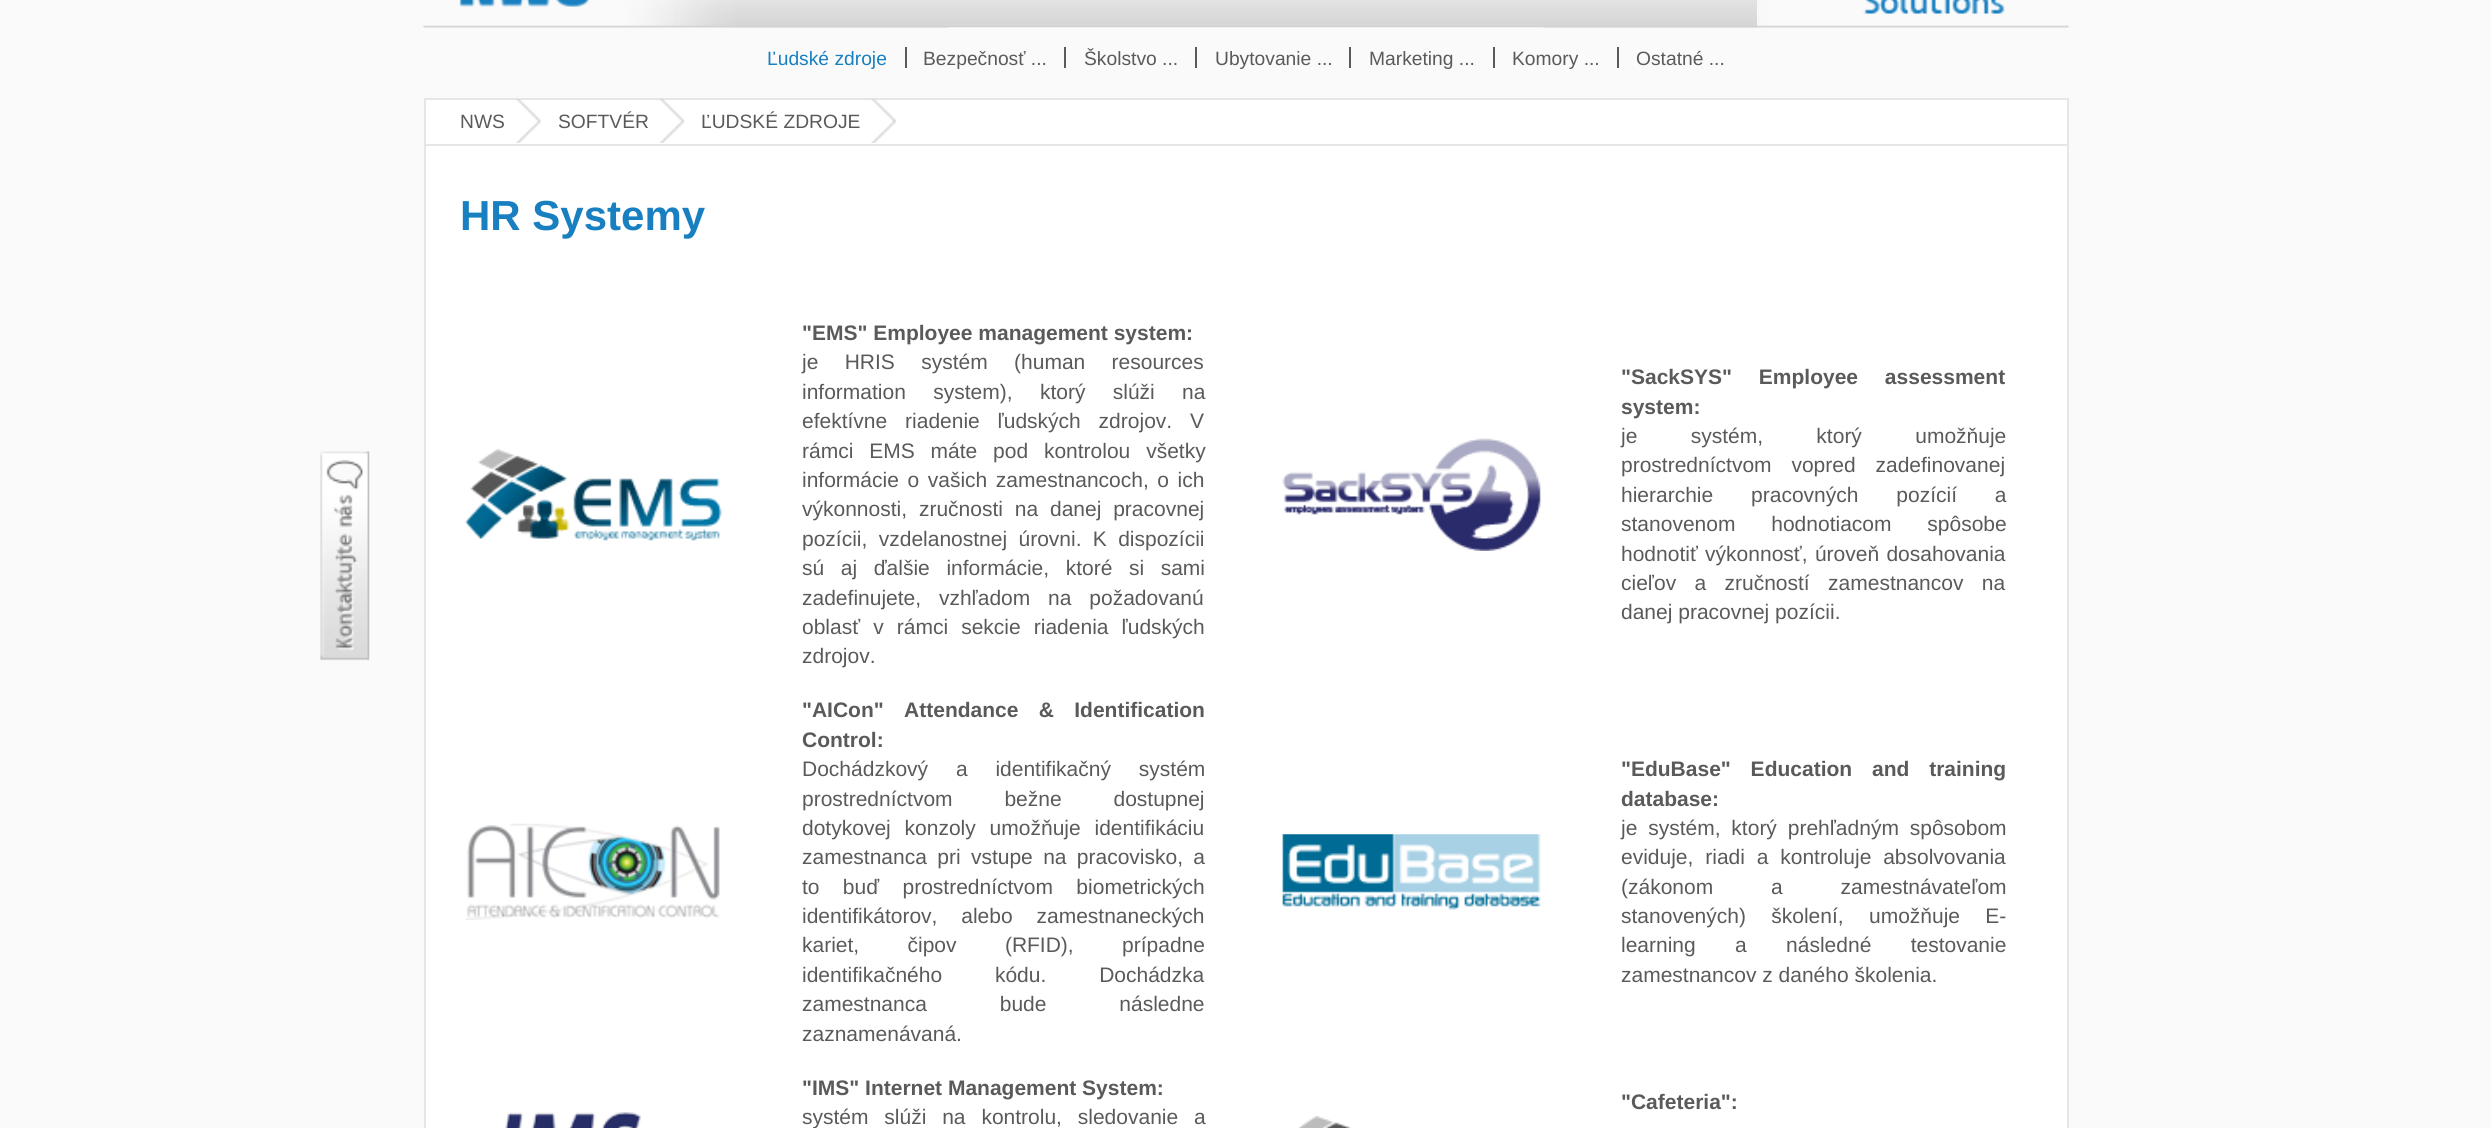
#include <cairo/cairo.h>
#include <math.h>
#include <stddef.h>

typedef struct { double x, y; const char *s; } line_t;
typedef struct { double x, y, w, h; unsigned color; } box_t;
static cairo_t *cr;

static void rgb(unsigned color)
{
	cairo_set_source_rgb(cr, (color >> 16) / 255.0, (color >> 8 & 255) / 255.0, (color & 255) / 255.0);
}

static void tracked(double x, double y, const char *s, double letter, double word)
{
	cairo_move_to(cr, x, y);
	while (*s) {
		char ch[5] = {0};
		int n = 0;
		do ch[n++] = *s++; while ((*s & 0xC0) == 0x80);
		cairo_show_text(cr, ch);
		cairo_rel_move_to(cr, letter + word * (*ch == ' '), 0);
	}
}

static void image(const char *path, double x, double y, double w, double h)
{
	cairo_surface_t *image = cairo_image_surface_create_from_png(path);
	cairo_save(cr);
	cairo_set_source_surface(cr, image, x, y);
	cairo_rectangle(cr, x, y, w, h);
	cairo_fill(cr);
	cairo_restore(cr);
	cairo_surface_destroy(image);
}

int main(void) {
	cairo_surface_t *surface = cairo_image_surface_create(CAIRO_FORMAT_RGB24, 2491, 1128);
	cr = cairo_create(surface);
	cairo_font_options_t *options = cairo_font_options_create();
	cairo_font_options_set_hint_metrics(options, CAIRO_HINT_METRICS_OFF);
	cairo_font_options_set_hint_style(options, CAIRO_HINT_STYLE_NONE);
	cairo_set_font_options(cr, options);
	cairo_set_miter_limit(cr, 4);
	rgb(0xfafafa);
	cairo_paint(cr);
	image("img/1.png", 320, 451, 50, 210);
	image("img/2.png", 423, 0, 1646, 28);
	image("img/3.png", 1863, 0, 142, 14);
	image("img/4.png", 459, 0, 130, 7);
	image("img/5.png", 737, 0, 1020, 28);
	{
		static const box_t items[] = {
			{905, 47, 2, 21, 0x5a5a5a},
			{1064, 47, 2, 21, 0x5a5a5a},
			{1195, 47, 2, 21, 0x5a5a5a},
			{1349, 47, 2, 21, 0x5a5a5a},
			{1493, 47, 2, 21, 0x5a5a5a},
			{1617, 47, 2, 21, 0x5a5a5a},
			{426, 100, 1641, 44, 0xffffff},
			{424, 98, 1645, 2, 0xe6e6e6},
			{2067, 98, 2, 46, 0xe6e6e6},
			{424, 98, 2, 46, 0xe6e6e6},
		};
		for (size_t i = 0; i < sizeof items / sizeof *items; i++) {
			rgb(items[i].color);
			cairo_rectangle(cr, items[i].x, items[i].y, items[i].w, items[i].h);
			cairo_fill(cr);
		}
	}
	image("img/6.png", 516, 99, 25, 44);
	image("img/7.png", 659, 99, 26, 44);
	image("img/8.png", 871, 99, 25, 44);
	rgb(0xffffff);
	cairo_rectangle(cr, 425, 145, 1643, 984);
	cairo_fill_preserve(cr);
	rgb(0xe6e6e6);
	cairo_stroke(cr);
	image("img/9.png", 465, 449, 257, 92);
	image("img/10.png", 1282, 438, 259, 113);
	image("img/11.png", 465, 823, 255, 97);
	image("img/12.png", 1282, 834, 259, 76);
	image("img/13.png", 505, 1112, 136, 16);
	image("img/14.png", 1298, 1116, 54, 12);
	cairo_select_font_face(cr, "Liberation Sans", CAIRO_FONT_SLANT_NORMAL, CAIRO_FONT_WEIGHT_NORMAL);
	cairo_set_font_size(cr, 19.25);
	rgb(0x187fc0);
	cairo_move_to(cr, 767, 65);
	cairo_show_text(cr, "Ľudské zdroje");
	rgb(0x5a5a5a);
	{
		static const line_t items[] = {
			{923, 65, "Bezpečnosť ..."},
			{1084, 65, "Školstvo ..."},
			{1215, 65, "Ubytovanie ..."},
			{1369, 65, "Marketing ..."},
			{1512, 65, "Komory ..."},
			{1636, 65, "Ostatné ..."},
			{460, 128, "NWS"},
			{558, 128, "SOFTVÉR"},
			{701, 128, "ĽUDSKÉ ZDROJE"},
		};
		for (size_t i = 0; i < sizeof items / sizeof *items; i++) {
			cairo_move_to(cr, items[i].x, items[i].y);
			cairo_show_text(cr, items[i].s);
		}
	}
	cairo_select_font_face(cr, "Liberation Sans", CAIRO_FONT_SLANT_NORMAL, CAIRO_FONT_WEIGHT_BOLD);
	cairo_set_font_size(cr, 42);
	rgb(0x187fc0);
	cairo_move_to(cr, 460, 230);
	cairo_show_text(cr, "HR Systemy");
	cairo_set_font_size(cr, 21);
	rgb(0x5a5a5a);
	cairo_move_to(cr, 802, 340);
	cairo_show_text(cr, "\"EMS\" Employee management system:");
	cairo_select_font_face(cr, "Liberation Sans", CAIRO_FONT_SLANT_NORMAL, CAIRO_FONT_WEIGHT_NORMAL);
	tracked(802, 369, "je HRIS systém (human resources", 0, 20.5);
	tracked(802, 399, "information system), ktorý slúži na", 0, 21.5);
	tracked(802, 428, "efektívne riadenie ľudských zdrojov. V", 0, 12);
	tracked(802, 458, "rámci EMS máte pod kontrolou všetky", 0, 10);
	tracked(802, 487, "informácie o vašich zamestnancoch, o ich", 0, 2.75);
	tracked(802, 516, "výkonnosti, zručnosti na danej pracovnej", 0, 6);
	tracked(802, 546, "pozícii, vzdelanostnej úrovni. K dispozícii", 0, 5.5);
	tracked(802, 575, "sú aj ďalšie informácie, ktoré si sami", 0, 10.75);
	tracked(802, 605, "zadefinujete, vzhľadom na požadovanú", 0, 12);
	tracked(802, 634, "oblasť v rámci sekcie riadenia ľudských", 0, 7.25);
	cairo_move_to(cr, 802, 663);
	cairo_show_text(cr, "zdrojov.");
	cairo_select_font_face(cr, "Liberation Sans", CAIRO_FONT_SLANT_NORMAL, CAIRO_FONT_WEIGHT_BOLD);
	tracked(1621, 384, "\"SackSYS\" Employee assessment", 0, 21);
	cairo_move_to(cr, 1621, 414);
	cairo_show_text(cr, "system:");
	cairo_select_font_face(cr, "Liberation Sans", CAIRO_FONT_SLANT_NORMAL, CAIRO_FONT_WEIGHT_NORMAL);
	tracked(1621, 443, "je systém, ktorý umožňuje", 0, 47.5);
	tracked(1621, 472, "prostredníctvom vopred zadefinovanej", 0, 14);
	tracked(1621, 502, "hierarchie pracovných pozícií a", 0, 32);
	tracked(1621, 531, "stanovenom hodnotiacom spôsobe", 0, 30);
	tracked(1621, 561, "hodnotiť výkonnosť, úroveň dosahovania", 0, 1.5);
	tracked(1621, 590, "cieľov a zručností zamestnancov na", 0, 12.5);
	cairo_move_to(cr, 1621, 619);
	cairo_show_text(cr, "danej pracovnej pozícii.");
	cairo_select_font_face(cr, "Liberation Sans", CAIRO_FONT_SLANT_NORMAL, CAIRO_FONT_WEIGHT_BOLD);
	tracked(802, 717, "\"AICon\" Attendance & Identification", 0, 14.5);
	cairo_move_to(cr, 802, 747);
	cairo_show_text(cr, "Control:");
	cairo_select_font_face(cr, "Liberation Sans", CAIRO_FONT_SLANT_NORMAL, CAIRO_FONT_WEIGHT_NORMAL);
	tracked(802, 776, "Dochádzkový a identifikačný systém", 0, 22);
	tracked(802, 806, "prostredníctvom bežne dostupnej", 0, 46);
	tracked(802, 835, "dotykovej konzoly umožňuje identifikáciu", 0, 8);
	tracked(802, 864, "zamestnanca pri vstupe na pracovisko, a", 0, 4.5);
	tracked(802, 894, "to buď prostredníctvom biometrických", 0, 17.5);
	tracked(802, 923, "identifikátorov, alebo zamestnaneckých", 0, 18);
	tracked(802, 952, "kariet, čipov (RFID), prípadne", 0, 42.5);
	tracked(802, 982, "identifikačného kódu. Dochádzka", 0, 47);
	tracked(802, 1011, "zamestnanca bude následne", 0, 67);
	cairo_move_to(cr, 802, 1041);
	cairo_show_text(cr, "zaznamenávaná.");
	cairo_select_font_face(cr, "Liberation Sans", CAIRO_FONT_SLANT_NORMAL, CAIRO_FONT_WEIGHT_BOLD);
	tracked(1621, 776, "\"EduBase\" Education and training", 0, 14);
	cairo_move_to(cr, 1621, 806);
	cairo_show_text(cr, "database:");
	cairo_select_font_face(cr, "Liberation Sans", CAIRO_FONT_SLANT_NORMAL, CAIRO_FONT_WEIGHT_NORMAL);
	tracked(1621, 835, "je systém, ktorý prehľadným spôsobom", 0, 5);
	tracked(1621, 864, "eviduje, riadi a kontroluje absolvovania", 0, 6);
	tracked(1621, 894, "(zákonom a zamestnávateľom", 0, 52);
	tracked(1621, 923, "stanovených) školení, umožňuje E-", 0, 19.5);
	tracked(1621, 952, "learning a následné testovanie", 0, 33.5);
	cairo_move_to(cr, 1621, 982);
	cairo_show_text(cr, "zamestnancov z daného školenia.");
	cairo_select_font_face(cr, "Liberation Sans", CAIRO_FONT_SLANT_NORMAL, CAIRO_FONT_WEIGHT_BOLD);
	cairo_move_to(cr, 802, 1095);
	cairo_show_text(cr, "\"IMS\" Internet Management System:");
	cairo_select_font_face(cr, "Liberation Sans", CAIRO_FONT_SLANT_NORMAL, CAIRO_FONT_WEIGHT_NORMAL);
	tracked(802, 1124, "systém slúži na kontrolu, sledovanie a", 0, 10);
	cairo_select_font_face(cr, "Liberation Sans", CAIRO_FONT_SLANT_NORMAL, CAIRO_FONT_WEIGHT_BOLD);
	cairo_move_to(cr, 1621, 1109);
	cairo_show_text(cr, "\"Cafeteria\":");
	cairo_surface_write_to_png(surface, "page.png");
	cairo_font_options_destroy(options);
	cairo_destroy(cr);
	cairo_surface_destroy(surface);
	return 0;
}
